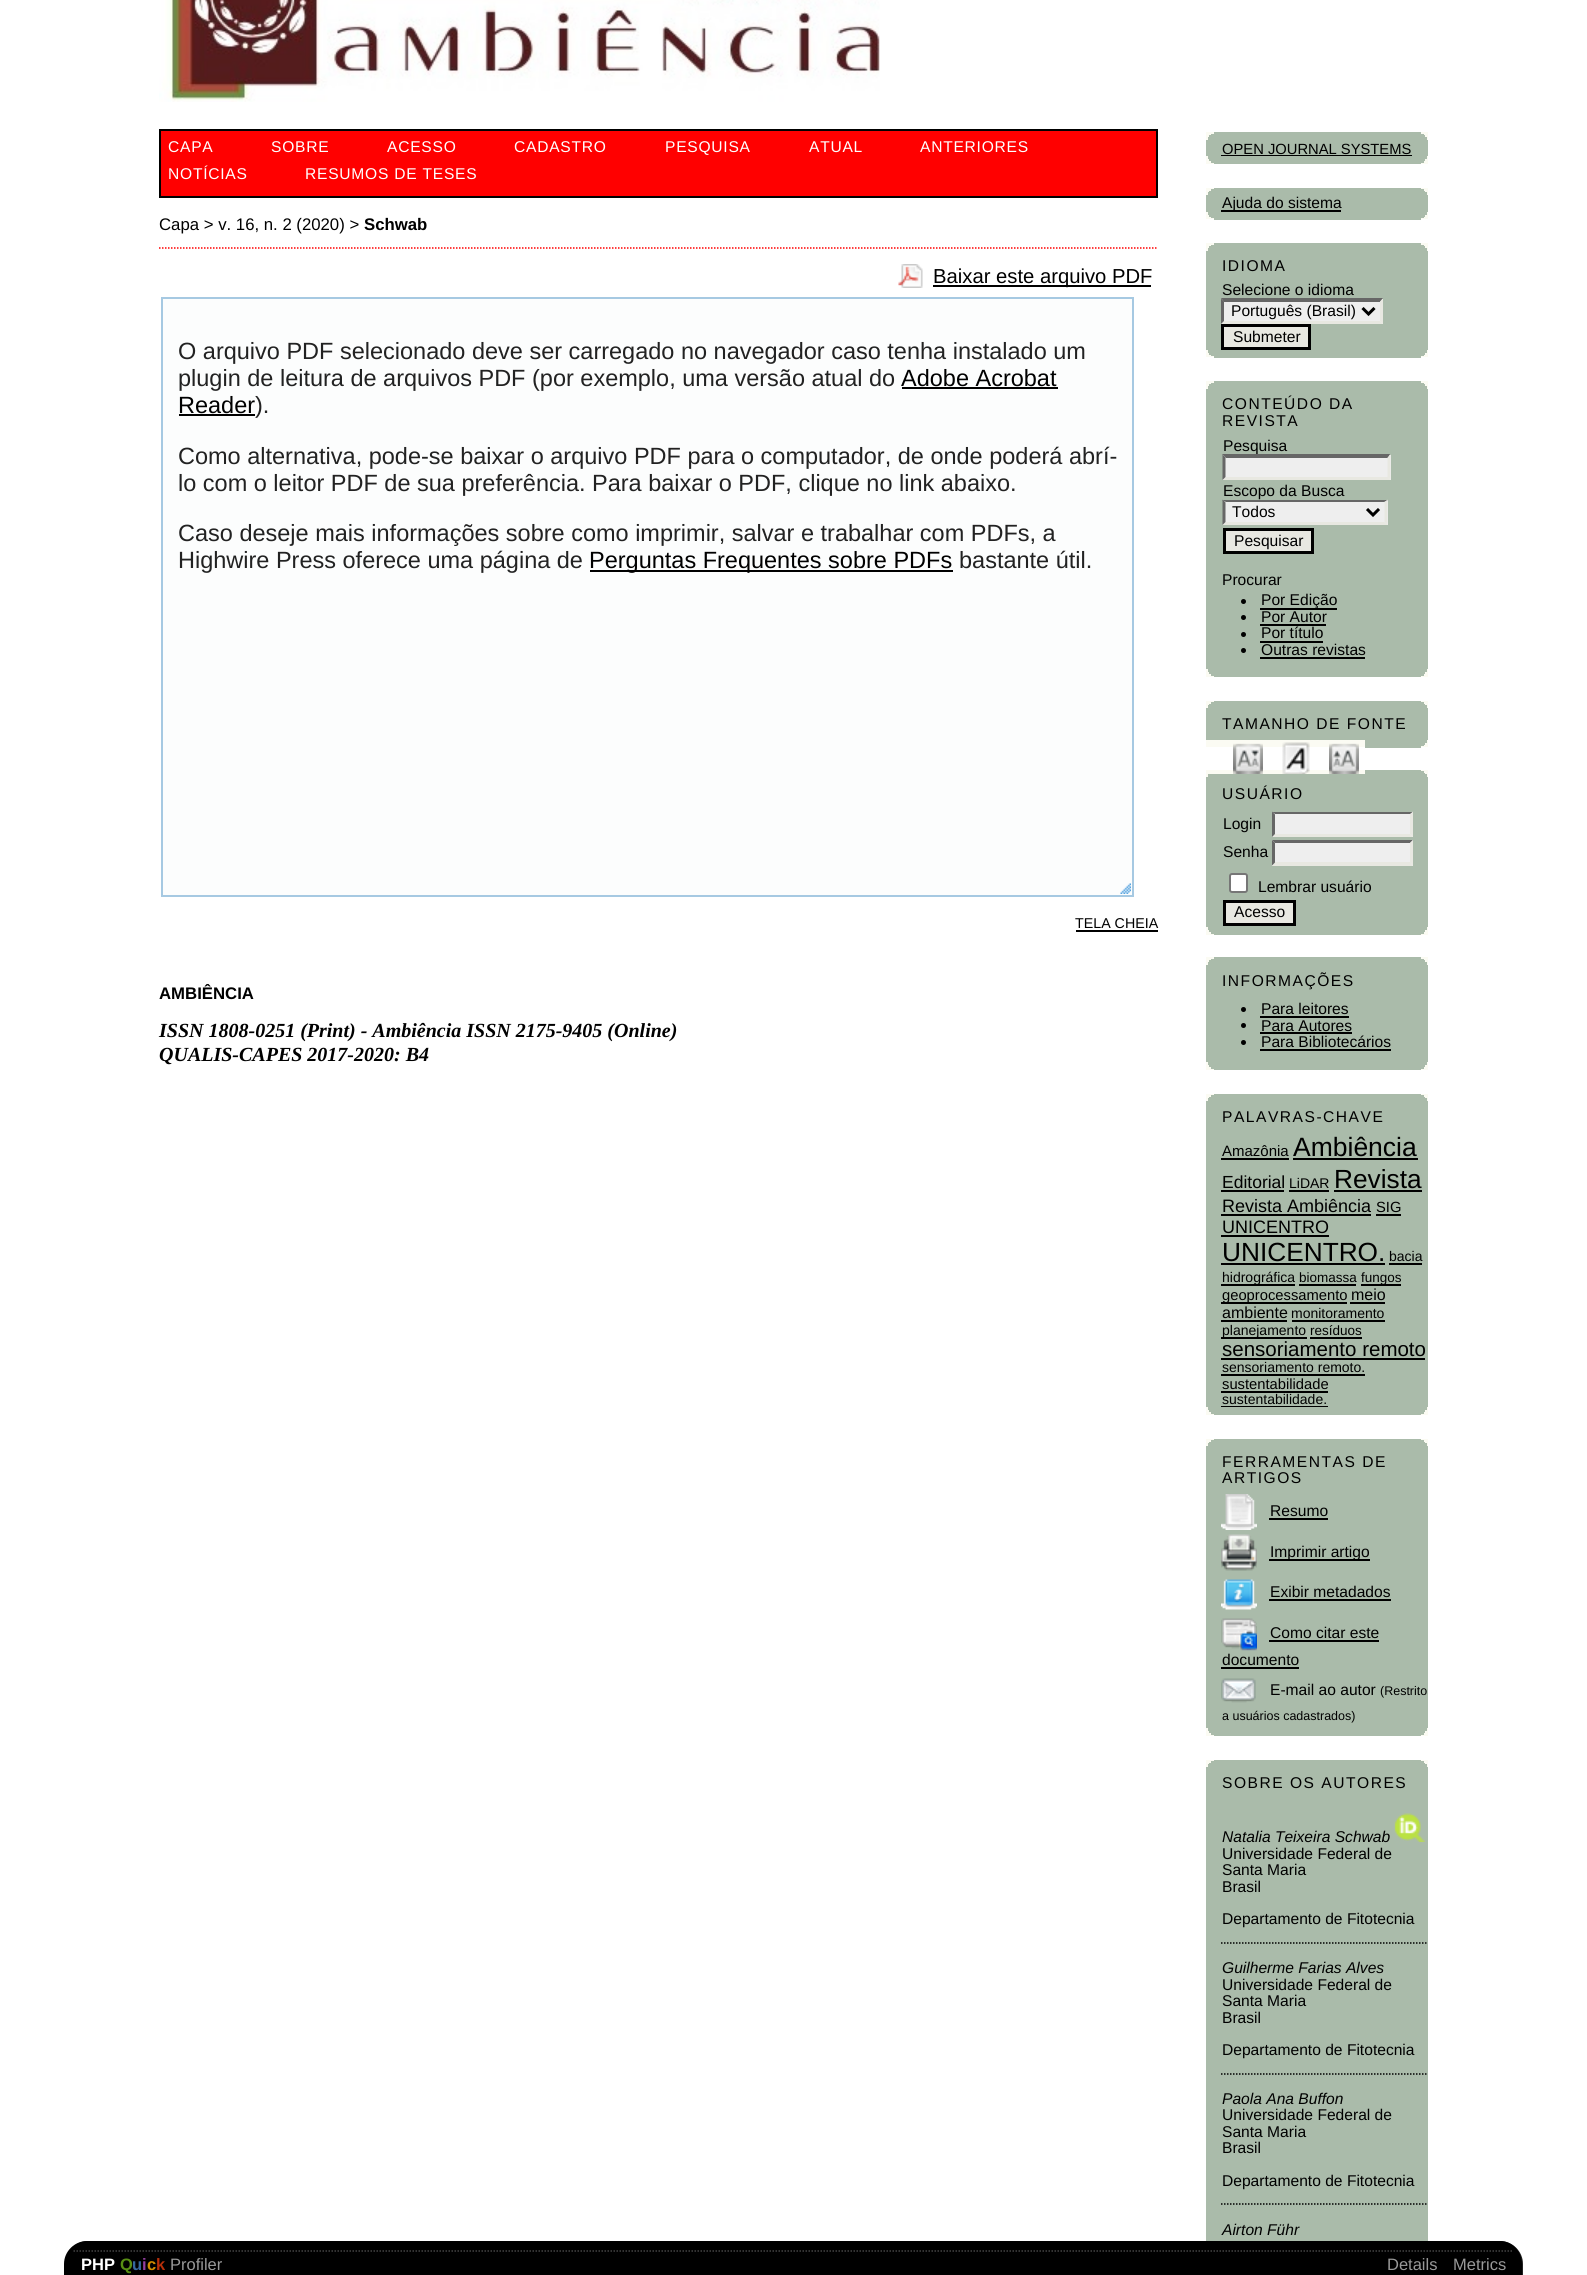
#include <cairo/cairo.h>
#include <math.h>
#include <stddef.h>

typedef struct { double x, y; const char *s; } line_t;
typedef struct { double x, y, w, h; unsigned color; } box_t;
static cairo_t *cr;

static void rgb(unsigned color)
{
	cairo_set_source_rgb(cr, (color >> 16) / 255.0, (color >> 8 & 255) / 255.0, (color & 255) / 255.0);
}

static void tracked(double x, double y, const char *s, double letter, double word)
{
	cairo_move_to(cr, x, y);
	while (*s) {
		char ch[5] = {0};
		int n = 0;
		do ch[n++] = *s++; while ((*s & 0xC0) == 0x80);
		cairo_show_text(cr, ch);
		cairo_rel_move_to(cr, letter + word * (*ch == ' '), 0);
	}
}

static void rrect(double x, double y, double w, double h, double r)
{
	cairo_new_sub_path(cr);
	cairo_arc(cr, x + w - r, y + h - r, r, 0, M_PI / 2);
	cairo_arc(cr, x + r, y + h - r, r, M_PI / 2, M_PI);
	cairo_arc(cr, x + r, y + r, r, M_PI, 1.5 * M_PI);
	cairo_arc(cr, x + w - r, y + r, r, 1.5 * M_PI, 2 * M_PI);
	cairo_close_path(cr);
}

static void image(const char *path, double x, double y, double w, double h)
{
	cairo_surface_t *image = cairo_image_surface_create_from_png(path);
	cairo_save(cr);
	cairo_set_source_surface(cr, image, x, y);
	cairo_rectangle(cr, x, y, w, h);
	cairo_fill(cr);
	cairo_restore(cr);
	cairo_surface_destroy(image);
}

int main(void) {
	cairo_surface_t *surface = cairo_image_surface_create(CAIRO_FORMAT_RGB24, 1587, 2275);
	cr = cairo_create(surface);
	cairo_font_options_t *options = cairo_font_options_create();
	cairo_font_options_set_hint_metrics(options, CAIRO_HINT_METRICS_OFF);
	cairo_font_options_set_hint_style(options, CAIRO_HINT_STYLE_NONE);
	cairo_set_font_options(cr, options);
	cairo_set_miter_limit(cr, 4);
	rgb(0xffffff);
	cairo_paint(cr);
	image("img/1.png", 159, 0, 721, 102);
	rgb(0xff0000);
	cairo_rectangle(cr, 160, 130, 997, 67);
	cairo_fill_preserve(cr);
	rgb(0x000000);
	cairo_stroke(cr);
	cairo_new_path(cr);
	cairo_move_to(cr, 159, 248);
	cairo_line_to(cr, 1158, 248);
	rgb(0xff0000);
	cairo_set_line_width(cr, 1.5);
	cairo_set_dash(cr, (double[]){1.5, 1.5}, 2, 0);
	cairo_stroke(cr);
	image("img/2.png", 898, 264, 25, 24);
	rgb(0x000000);
	cairo_rectangle(cr, 933, 285, 218, 2);
	cairo_fill(cr);
	rgb(0xfcfdfd);
	cairo_rectangle(cr, 162, 298, 971, 598);
	cairo_fill_preserve(cr);
	rgb(0xa6c9e2);
	cairo_set_line_width(cr, 2);
	cairo_set_dash(cr, NULL, 0, 0);
	cairo_stroke(cr);
	{
		static const box_t items[] = {
			{902, 387, 156, 2, 0x000000},
			{179, 414, 76, 2, 0x000000},
			{590, 570, 363, 2, 0x000000},
		};
		for (size_t i = 0; i < sizeof items / sizeof *items; i++) {
			rgb(items[i].color);
			cairo_rectangle(cr, items[i].x, items[i].y, items[i].w, items[i].h);
			cairo_fill(cr);
		}
	}
	image("img/3.png", 1120, 883, 11, 11);
	{
		static const box_t items[] = {
			{1076, 930, 82, 2, 0x000000},
			{1206, 140, 222, 16, 0xaabbaa},
			{1206, 132, 222, 8, 0xfbfbf3},
			{1214, 132, 207, 2, 0xaabbaa},
			{1211, 134, 213, 1, 0xaabbaa},
			{1209, 135, 216, 2, 0xaabbaa},
			{1208, 137, 219, 3, 0xaabbaa},
			{1221, 155, 191, 1, 0x000000},
			{1206, 156, 222, 8, 0xfbfbf3},
			{1208, 156, 219, 3, 0xaabbaa},
			{1209, 159, 216, 2, 0xaabbaa},
			{1211, 161, 213, 2, 0xaabbaa},
			{1214, 163, 207, 1, 0xaabbaa},
			{1206, 195, 222, 17, 0xaabbaa},
			{1206, 188, 222, 7, 0xfbfbf3},
			{1214, 188, 207, 1, 0xaabbaa},
			{1211, 189, 213, 2, 0xaabbaa},
			{1209, 191, 216, 1, 0xaabbaa},
			{1208, 192, 219, 3, 0xaabbaa},
			{1221, 210, 120, 2, 0x000000},
			{1206, 212, 222, 7, 0xfbfbf3},
			{1208, 212, 219, 3, 0xaabbaa},
			{1209, 215, 216, 2, 0xaabbaa},
			{1211, 217, 213, 1, 0xaabbaa},
			{1214, 218, 207, 2, 0xaabbaa},
			{1206, 251, 222, 99, 0xaabbaa},
			{1206, 243, 222, 8, 0xfbfbf3},
			{1214, 243, 207, 2, 0xaabbaa},
			{1211, 245, 213, 1, 0xaabbaa},
			{1209, 246, 216, 2, 0xaabbaa},
			{1208, 248, 219, 3, 0xaabbaa},
			{1221, 299, 162, 25, 0xeeeeee},
		};
		for (size_t i = 0; i < sizeof items / sizeof *items; i++) {
			rgb(items[i].color);
			cairo_rectangle(cr, items[i].x, items[i].y, items[i].w, items[i].h);
			cairo_fill(cr);
		}
	}
	rgb(0x666666);
	cairo_new_path(cr);
	cairo_move_to(cr, 1221, 298);
	cairo_line_to(cr, 1383, 298);
	cairo_line_to(cr, 1380, 302);
	cairo_line_to(cr, 1224, 302);
	cairo_close_path(cr);
	cairo_fill(cr);
	rgb(0xe8e8e1);
	cairo_new_path(cr);
	cairo_move_to(cr, 1383, 298.5);
	cairo_line_to(cr, 1383, 324);
	cairo_line_to(cr, 1380, 321);
	cairo_line_to(cr, 1380, 301.5);
	cairo_close_path(cr);
	cairo_fill(cr);
	cairo_new_path(cr);
	cairo_move_to(cr, 1383, 324);
	cairo_line_to(cr, 1221, 324);
	cairo_line_to(cr, 1224, 321);
	cairo_line_to(cr, 1380, 321);
	cairo_close_path(cr);
	cairo_fill(cr);
	rgb(0x666666);
	cairo_new_path(cr);
	cairo_move_to(cr, 1221, 324);
	cairo_line_to(cr, 1221, 298.5);
	cairo_line_to(cr, 1224, 301.5);
	cairo_line_to(cr, 1224, 321);
	cairo_close_path(cr);
	cairo_fill(cr);
	cairo_new_path(cr);
	cairo_move_to(cr, 1362.5, 308);
	cairo_line_to(cr, 1368.5, 314);
	cairo_line_to(cr, 1374.5, 308);
	rgb(0x000000);
	cairo_set_line_width(cr, 3);
	cairo_stroke(cr);
	rgb(0xe8e8e1);
	cairo_rectangle(cr, 1222.5, 325.5, 87, 23);
	cairo_fill_preserve(cr);
	rgb(0x000000);
	cairo_stroke(cr);
	{
		static const box_t items[] = {
			{1206, 350, 222, 7, 0xfbfbf3},
			{1208, 350, 219, 3, 0xaabbaa},
			{1209, 353, 216, 2, 0xaabbaa},
			{1211, 355, 213, 1, 0xaabbaa},
			{1214, 356, 207, 2, 0xaabbaa},
			{1206, 389, 222, 280, 0xaabbaa},
			{1206, 381, 222, 8, 0xfbfbf3},
			{1214, 381, 207, 2, 0xaabbaa},
			{1211, 383, 213, 1, 0xaabbaa},
			{1209, 384, 216, 2, 0xaabbaa},
			{1208, 386, 219, 3, 0xaabbaa},
			{1223, 455, 168, 25, 0xeeeeee},
			{1223, 500, 165, 25, 0xeeeeee},
		};
		for (size_t i = 0; i < sizeof items / sizeof *items; i++) {
			rgb(items[i].color);
			cairo_rectangle(cr, items[i].x, items[i].y, items[i].w, items[i].h);
			cairo_fill(cr);
		}
	}
	rgb(0x666666);
	cairo_new_path(cr);
	cairo_move_to(cr, 1222, 500);
	cairo_line_to(cr, 1388, 500);
	cairo_line_to(cr, 1384, 502);
	cairo_line_to(cr, 1226, 502);
	cairo_close_path(cr);
	cairo_fill(cr);
	rgb(0xe8e8e1);
	cairo_new_path(cr);
	cairo_move_to(cr, 1387.5, 499.5);
	cairo_line_to(cr, 1387.5, 525);
	cairo_line_to(cr, 1384.5, 522);
	cairo_line_to(cr, 1384.5, 502.5);
	cairo_close_path(cr);
	cairo_fill(cr);
	cairo_new_path(cr);
	cairo_move_to(cr, 1388, 525);
	cairo_line_to(cr, 1222, 525);
	cairo_line_to(cr, 1226, 522);
	cairo_line_to(cr, 1384, 522);
	cairo_close_path(cr);
	cairo_fill(cr);
	cairo_new_path(cr);
	cairo_move_to(cr, 1367, 509);
	cairo_line_to(cr, 1373, 515);
	cairo_line_to(cr, 1379, 509);
	rgb(0x000000);
	cairo_stroke(cr);
	rgb(0xe8e8e1);
	cairo_rectangle(cr, 1224.5, 529.5, 88, 23);
	cairo_fill_preserve(cr);
	rgb(0x000000);
	cairo_stroke(cr);
	cairo_arc(cr, 1243.5, 601.5, 2.5, 0, 2 * M_PI);
	cairo_fill(cr);
	cairo_rectangle(cr, 1260, 608, 77, 2);
	cairo_fill(cr);
	cairo_arc(cr, 1243.5, 617.5, 2.5, 0, 2 * M_PI);
	cairo_fill(cr);
	cairo_rectangle(cr, 1260, 624, 66, 2);
	cairo_fill(cr);
	cairo_arc(cr, 1243.5, 634.5, 2.5, 0, 2 * M_PI);
	cairo_fill(cr);
	cairo_rectangle(cr, 1260, 641, 63, 2);
	cairo_fill(cr);
	cairo_arc(cr, 1243.5, 650.5, 2.5, 0, 2 * M_PI);
	cairo_fill(cr);
	{
		static const box_t items[] = {
			{1260, 657, 105, 2, 0x000000},
			{1206, 669, 222, 8, 0xfbfbf3},
			{1208, 669, 219, 3, 0xaabbaa},
			{1209, 672, 216, 2, 0xaabbaa},
			{1211, 674, 213, 2, 0xaabbaa},
			{1214, 676, 207, 1, 0xaabbaa},
			{1206, 708, 222, 32, 0xaabbaa},
			{1206, 701, 222, 7, 0xfbfbf3},
			{1214, 701, 207, 1, 0xaabbaa},
			{1211, 702, 213, 2, 0xaabbaa},
			{1209, 704, 216, 1, 0xaabbaa},
			{1208, 705, 219, 3, 0xaabbaa},
			{1206, 740, 222, 7, 0xfbfbf3},
			{1206, 770, 222, 7, 0xfbfbf3},
		};
		for (size_t i = 0; i < sizeof items / sizeof *items; i++) {
			rgb(items[i].color);
			cairo_rectangle(cr, items[i].x, items[i].y, items[i].w, items[i].h);
			cairo_fill(cr);
		}
	}
	image("img/4.png", 1233, 743, 30, 31);
	image("img/5.png", 1282, 742, 28, 32);
	image("img/6.png", 1329, 743, 30, 31);
	{
		static const box_t items[] = {
			{1365, 740, 62, 3, 0xaabbaa},
			{1365, 743, 60, 2, 0xaabbaa},
			{1365, 745, 59, 1, 0xaabbaa},
			{1365, 746, 56, 2, 0xaabbaa},
			{1206, 777, 222, 150, 0xaabbaa},
			{1365, 770, 56, 1, 0xaabbaa},
			{1365, 771, 59, 2, 0xaabbaa},
			{1365, 773, 60, 1, 0xaabbaa},
			{1208, 774, 219, 3, 0xaabbaa},
			{1272, 812, 141, 25, 0xeeeeee},
		};
		for (size_t i = 0; i < sizeof items / sizeof *items; i++) {
			rgb(items[i].color);
			cairo_rectangle(cr, items[i].x, items[i].y, items[i].w, items[i].h);
			cairo_fill(cr);
		}
	}
	rgb(0x666666);
	cairo_new_path(cr);
	cairo_move_to(cr, 1272, 812);
	cairo_line_to(cr, 1413, 812);
	cairo_line_to(cr, 1410, 814);
	cairo_line_to(cr, 1275, 814);
	cairo_close_path(cr);
	cairo_fill(cr);
	rgb(0xe8e8e1);
	cairo_new_path(cr);
	cairo_move_to(cr, 1413, 811.5);
	cairo_line_to(cr, 1413, 837);
	cairo_line_to(cr, 1410, 834);
	cairo_line_to(cr, 1410, 814.5);
	cairo_close_path(cr);
	cairo_fill(cr);
	cairo_new_path(cr);
	cairo_move_to(cr, 1413, 837);
	cairo_line_to(cr, 1272, 837);
	cairo_line_to(cr, 1275, 834);
	cairo_line_to(cr, 1410, 834);
	cairo_close_path(cr);
	cairo_fill(cr);
	rgb(0x666666);
	cairo_new_path(cr);
	cairo_move_to(cr, 1272, 837);
	cairo_line_to(cr, 1272, 811.5);
	cairo_line_to(cr, 1275, 814.5);
	cairo_line_to(cr, 1275, 834);
	cairo_close_path(cr);
	cairo_fill(cr);
	rgb(0xeeeeee);
	cairo_rectangle(cr, 1272, 840, 141, 26);
	cairo_fill(cr);
	rgb(0x666666);
	cairo_new_path(cr);
	cairo_move_to(cr, 1272, 840);
	cairo_line_to(cr, 1413, 840);
	cairo_line_to(cr, 1410, 843);
	cairo_line_to(cr, 1275, 843);
	cairo_close_path(cr);
	cairo_fill(cr);
	rgb(0xe8e8e1);
	cairo_new_path(cr);
	cairo_move_to(cr, 1413, 840);
	cairo_line_to(cr, 1413, 865.5);
	cairo_line_to(cr, 1410, 862.5);
	cairo_line_to(cr, 1410, 843);
	cairo_close_path(cr);
	cairo_fill(cr);
	cairo_new_path(cr);
	cairo_move_to(cr, 1413, 866);
	cairo_line_to(cr, 1272, 866);
	cairo_line_to(cr, 1275, 862);
	cairo_line_to(cr, 1410, 862);
	cairo_close_path(cr);
	cairo_fill(cr);
	rgb(0x666666);
	cairo_new_path(cr);
	cairo_move_to(cr, 1272, 865.5);
	cairo_line_to(cr, 1272, 840);
	cairo_line_to(cr, 1275, 843);
	cairo_line_to(cr, 1275, 862.5);
	cairo_close_path(cr);
	cairo_fill(cr);
	rgb(0xffffff);
	rrect(1230, 874, 17, 18, 2);
	cairo_fill_preserve(cr);
	rgb(0x767676);
	cairo_set_line_width(cr, 2);
	cairo_stroke(cr);
	rgb(0xe8e8e1);
	cairo_rectangle(cr, 1224.5, 901.5, 70, 23);
	cairo_fill_preserve(cr);
	rgb(0x000000);
	cairo_set_line_width(cr, 3);
	cairo_stroke(cr);
	{
		static const box_t items[] = {
			{1206, 927, 222, 8, 0xfbfbf3},
			{1208, 927, 219, 3, 0xaabbaa},
			{1209, 930, 216, 2, 0xaabbaa},
			{1211, 932, 213, 2, 0xaabbaa},
			{1214, 934, 207, 1, 0xaabbaa},
			{1206, 965, 222, 97, 0xaabbaa},
			{1206, 957, 222, 8, 0xfbfbf3},
			{1214, 957, 207, 2, 0xaabbaa},
			{1211, 959, 213, 1, 0xaabbaa},
			{1209, 960, 216, 2, 0xaabbaa},
			{1208, 962, 219, 3, 0xaabbaa},
		};
		for (size_t i = 0; i < sizeof items / sizeof *items; i++) {
			rgb(items[i].color);
			cairo_rectangle(cr, items[i].x, items[i].y, items[i].w, items[i].h);
			cairo_fill(cr);
		}
	}
	rgb(0x000000);
	cairo_arc(cr, 1243.5, 1009.5, 2.5, 0, 2 * M_PI);
	cairo_fill(cr);
	cairo_rectangle(cr, 1260, 1016, 89, 2);
	cairo_fill(cr);
	cairo_arc(cr, 1243.5, 1025.5, 2.5, 0, 2 * M_PI);
	cairo_fill(cr);
	cairo_rectangle(cr, 1260, 1032, 92, 2);
	cairo_fill(cr);
	cairo_arc(cr, 1243.5, 1042.5, 2.5, 0, 2 * M_PI);
	cairo_fill(cr);
	{
		static const box_t items[] = {
			{1260, 1049, 131, 2, 0x000000},
			{1206, 1062, 222, 8, 0xfbfbf3},
			{1208, 1062, 219, 3, 0xaabbaa},
			{1209, 1065, 216, 2, 0xaabbaa},
			{1211, 1067, 213, 2, 0xaabbaa},
			{1214, 1069, 207, 1, 0xaabbaa},
			{1206, 1101, 222, 306, 0xaabbaa},
			{1206, 1094, 222, 7, 0xfbfbf3},
			{1214, 1094, 207, 1, 0xaabbaa},
			{1211, 1095, 213, 2, 0xaabbaa},
			{1209, 1097, 216, 1, 0xaabbaa},
			{1208, 1098, 219, 3, 0xaabbaa},
			{1221, 1158, 68, 2, 0x000000},
			{1293, 1158, 125, 2, 0x000000},
			{1221, 1190, 63, 2, 0x000000},
			{1289, 1190, 40, 2, 0x000000},
			{1334, 1190, 88, 2, 0x000000},
			{1221, 1214, 150, 2, 0x000000},
			{1376, 1214, 25, 2, 0x000000},
			{1221, 1235, 108, 2, 0x000000},
			{1221, 1263, 164, 2, 0x000000},
			{1389, 1263, 33, 2, 0x000000},
			{1221, 1284, 74, 2, 0x000000},
			{1299, 1284, 57, 2, 0x000000},
			{1361, 1284, 40, 2, 0x000000},
			{1221, 1302, 126, 2, 0x000000},
			{1350, 1302, 35, 2, 0x000000},
			{1221, 1320, 66, 2, 0x000000},
			{1292, 1320, 93, 2, 0x000000},
			{1221, 1337, 86, 2, 0x000000},
			{1310, 1337, 52, 2, 0x000000},
			{1221, 1358, 204, 2, 0x000000},
			{1221, 1374, 144, 2, 0x000000},
			{1221, 1391, 107, 2, 0x000000},
			{1221, 1406, 107, 1, 0x000000},
			{1206, 1407, 222, 8, 0xfbfbf3},
			{1208, 1407, 219, 3, 0xaabbaa},
			{1209, 1410, 216, 2, 0xaabbaa},
			{1211, 1412, 213, 2, 0xaabbaa},
			{1214, 1414, 207, 1, 0xaabbaa},
			{1206, 1446, 222, 282, 0xaabbaa},
			{1206, 1439, 222, 7, 0xfbfbf3},
			{1214, 1439, 207, 1, 0xaabbaa},
			{1211, 1440, 213, 2, 0xaabbaa},
			{1209, 1442, 216, 1, 0xaabbaa},
			{1208, 1443, 219, 3, 0xaabbaa},
		};
		for (size_t i = 0; i < sizeof items / sizeof *items; i++) {
			rgb(items[i].color);
			cairo_rectangle(cr, items[i].x, items[i].y, items[i].w, items[i].h);
			cairo_fill(cr);
		}
	}
	image("img/7.png", 1221, 1494, 36, 36);
	rgb(0x000000);
	cairo_rectangle(cr, 1269, 1518, 59, 2);
	cairo_fill(cr);
	image("img/8.png", 1221, 1534, 36, 37);
	cairo_rectangle(cr, 1269, 1559, 101, 2);
	cairo_fill(cr);
	image("img/9.png", 1221, 1579, 36, 31);
	cairo_rectangle(cr, 1269, 1599, 122, 2);
	cairo_fill(cr);
	image("img/10.png", 1221, 1618, 36, 33);
	cairo_rectangle(cr, 1269, 1640, 110, 2);
	cairo_fill(cr);
	cairo_rectangle(cr, 1221, 1667, 78, 2);
	cairo_fill(cr);
	image("img/11.png", 1221, 1678, 35, 25);
	{
		static const box_t items[] = {
			{1206, 1728, 222, 8, 0xfbfbf3},
			{1208, 1728, 219, 3, 0xaabbaa},
			{1209, 1731, 216, 2, 0xaabbaa},
			{1211, 1733, 213, 2, 0xaabbaa},
			{1214, 1735, 207, 1, 0xaabbaa},
			{1206, 1767, 222, 474, 0xaabbaa},
			{1206, 1760, 222, 7, 0xfbfbf3},
			{1214, 1760, 207, 1, 0xaabbaa},
			{1211, 1761, 213, 2, 0xaabbaa},
			{1209, 1763, 216, 1, 0xaabbaa},
			{1208, 1764, 219, 3, 0xaabbaa},
		};
		for (size_t i = 0; i < sizeof items / sizeof *items; i++) {
			rgb(items[i].color);
			cairo_rectangle(cr, items[i].x, items[i].y, items[i].w, items[i].h);
			cairo_fill(cr);
		}
	}
	image("img/12.png", 1394, 1813, 31, 29);
	cairo_new_path(cr);
	cairo_move_to(cr, 1221, 1943);
	cairo_line_to(cr, 1428, 1943);
	rgb(0x000000);
	cairo_set_line_width(cr, 1.5);
	cairo_set_dash(cr, (double[]){1.5, 1.5}, 2, 0);
	cairo_stroke(cr);
	cairo_new_path(cr);
	cairo_move_to(cr, 1221, 2074);
	cairo_line_to(cr, 1428, 2074);
	cairo_stroke(cr);
	cairo_new_path(cr);
	cairo_move_to(cr, 1221, 2204);
	cairo_line_to(cr, 1428, 2204);
	cairo_stroke(cr);
	rgb(0x222222);
	cairo_new_path(cr);
	cairo_move_to(cr, 88, 2241);
	cairo_line_to(cr, 1500, 2241);
	cairo_curve_to(cr, 1512.5, 2241, 1523, 2251.5, 1523, 2264);
	cairo_line_to(cr, 1523, 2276);
	cairo_line_to(cr, 65, 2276);
	cairo_line_to(cr, 65, 2264);
	cairo_curve_to(cr, 65, 2251.5, 75.5, 2241, 88, 2241);
	cairo_close_path(cr);
	cairo_fill(cr);
	rgb(0x000000);
	cairo_set_fill_rule(cr, CAIRO_FILL_RULE_EVEN_ODD);
	cairo_new_path(cr);
	cairo_move_to(cr, 87, 2241);
	cairo_line_to(cr, 1500, 2241);
	cairo_curve_to(cr, 1512, 2241, 1522, 2251, 1522, 2264);
	cairo_line_to(cr, 1522, 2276);
	cairo_line_to(cr, 64, 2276);
	cairo_line_to(cr, 64, 2264);
	cairo_curve_to(cr, 64, 2251, 75, 2241, 87, 2241);
	cairo_close_path(cr);
	cairo_move_to(cr, 87, 2250);
	cairo_line_to(cr, 1500, 2250);
	cairo_curve_to(cr, 1507, 2250, 1514, 2256, 1514, 2264);
	cairo_line_to(cr, 1514, 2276);
	cairo_line_to(cr, 74, 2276);
	cairo_line_to(cr, 74, 2264);
	cairo_curve_to(cr, 74, 2256, 80, 2250, 87, 2250);
	cairo_close_path(cr);
	cairo_fill(cr);
	cairo_rectangle(cr, 74, 2250, 1440, 25);
	cairo_fill(cr);
	cairo_new_path(cr);
	cairo_move_to(cr, 73.5, 2251);
	cairo_line_to(cr, 1513.5, 2251);
	rgb(0x444444);
	cairo_stroke(cr);
	cairo_select_font_face(cr, "Liberation Sans", CAIRO_FONT_SLANT_NORMAL, CAIRO_FONT_WEIGHT_NORMAL);
	cairo_set_font_size(cr, 15.6);
	rgb(0xffffff);
	{
		static const line_t items[] = {
			{168, 152, "CAPA"},
			{271, 152, "SOBRE"},
			{387, 152, "ACESSO"},
			{514, 152, "CADASTRO"},
			{665, 152, "PESQUISA"},
			{809, 152, "ATUAL"},
			{920, 152, "ANTERIORES"},
			{168, 179, "NOTÍCIAS"},
			{305, 179, "RESUMOS DE TESES"},
		};
		for (size_t i = 0; i < sizeof items / sizeof *items; i++) {
			tracked(items[i].x, items[i].y, items[i].s, 0.75, 0);
		}
	}
	cairo_set_font_size(cr, 16.75);
	rgb(0x000000);
	cairo_move_to(cr, 159, 230);
	cairo_show_text(cr, "Capa > v. 16, n. 2 (2020) >");
	cairo_select_font_face(cr, "Liberation Sans", CAIRO_FONT_SLANT_NORMAL, CAIRO_FONT_WEIGHT_BOLD);
	cairo_move_to(cr, 364, 230);
	cairo_show_text(cr, "Schwab");
	cairo_select_font_face(cr, "Liberation Sans", CAIRO_FONT_SLANT_NORMAL, CAIRO_FONT_WEIGHT_NORMAL);
	cairo_set_font_size(cr, 20.25);
	cairo_move_to(cr, 933, 283);
	cairo_show_text(cr, "Baixar este arquivo PDF");
	cairo_set_font_size(cr, 23.5);
	rgb(0x222222);
	cairo_move_to(cr, 178, 359);
	cairo_show_text(cr, "O arquivo PDF selecionado deve ser carregado no navegador caso tenha instalado um");
	cairo_move_to(cr, 178, 386);
	cairo_show_text(cr, "plugin de leitura de arquivos PDF (por exemplo, uma versão atual do");
	rgb(0x000000);
	cairo_move_to(cr, 901, 386);
	cairo_show_text(cr, "Adobe Acrobat");
	cairo_move_to(cr, 178, 413);
	cairo_show_text(cr, "Reader");
	rgb(0x222222);
	{
		static const line_t items[] = {
			{255, 413, ")."},
			{178, 464, "Como alternativa, pode-se baixar o arquivo PDF para o computador, de onde poderá abrí-"},
			{178, 491, "lo com o leitor PDF de sua preferência. Para baixar o PDF, clique no link abaixo."},
			{178, 541, "Caso deseje mais informações sobre como imprimir, salvar e trabalhar com PDFs, a"},
			{178, 568, "Highwire Press oferece uma página de"},
		};
		for (size_t i = 0; i < sizeof items / sizeof *items; i++) {
			cairo_move_to(cr, items[i].x, items[i].y);
			cairo_show_text(cr, items[i].s);
		}
	}
	rgb(0x000000);
	cairo_move_to(cr, 589, 568);
	cairo_show_text(cr, "Perguntas Frequentes sobre PDFs");
	rgb(0x222222);
	cairo_move_to(cr, 959, 568);
	cairo_show_text(cr, "bastante útil.");
	cairo_set_font_size(cr, 14.25);
	rgb(0x000000);
	cairo_move_to(cr, 1075, 928);
	cairo_show_text(cr, "TELA CHEIA");
	cairo_select_font_face(cr, "Liberation Sans", CAIRO_FONT_SLANT_NORMAL, CAIRO_FONT_WEIGHT_BOLD);
	cairo_set_font_size(cr, 16.75);
	cairo_move_to(cr, 159, 999);
	cairo_show_text(cr, "AMBIÊNCIA");
	cairo_select_font_face(cr, "Liberation Serif", CAIRO_FONT_SLANT_ITALIC, CAIRO_FONT_WEIGHT_BOLD);
	cairo_set_font_size(cr, 20);
	cairo_move_to(cr, 159, 1037);
	cairo_show_text(cr, "ISSN 1808-0251 (Print) - Ambiência ISSN 2175-9405 (Online)");
	cairo_move_to(cr, 159, 1061);
	cairo_show_text(cr, "QUALIS-CAPES 2017-2020: B4");
	cairo_select_font_face(cr, "Liberation Sans", CAIRO_FONT_SLANT_NORMAL, CAIRO_FONT_WEIGHT_NORMAL);
	cairo_set_font_size(cr, 14.75);
	cairo_move_to(cr, 1222, 154);
	cairo_show_text(cr, "OPEN JOURNAL SYSTEMS");
	cairo_set_font_size(cr, 15.6);
	cairo_move_to(cr, 1222, 208);
	cairo_show_text(cr, "Ajuda do sistema");
	tracked(1222, 271, "IDIOMA", 1.5, 0);
	{
		static const line_t items[] = {
			{1222, 295, "Selecione o idioma"},
			{1231, 316, "Português (Brasil)"},
			{1233, 342, "Submeter"},
		};
		for (size_t i = 0; i < sizeof items / sizeof *items; i++) {
			cairo_move_to(cr, items[i].x, items[i].y);
			cairo_show_text(cr, items[i].s);
		}
	}
	tracked(1222, 409, "CONTEÚDO DA", 1.5, 0);
	tracked(1222, 426, "REVISTA", 1.5, 0);
	cairo_move_to(cr, 1223, 451);
	cairo_show_text(cr, "Pesquisa");
	rgb(0x666666);
	cairo_set_fill_rule(cr, CAIRO_FILL_RULE_WINDING);
	cairo_new_path(cr);
	cairo_move_to(cr, 1222, 454);
	cairo_line_to(cr, 1390, 454);
	cairo_line_to(cr, 1388, 458);
	cairo_line_to(cr, 1226, 458);
	cairo_close_path(cr);
	cairo_fill(cr);
	rgb(0xe8e8e1);
	cairo_new_path(cr);
	cairo_move_to(cr, 1390.5, 454.5);
	cairo_line_to(cr, 1390.5, 480);
	cairo_line_to(cr, 1387.5, 477);
	cairo_line_to(cr, 1387.5, 457.5);
	cairo_close_path(cr);
	cairo_fill(cr);
	cairo_new_path(cr);
	cairo_move_to(cr, 1390, 480);
	cairo_line_to(cr, 1222, 480);
	cairo_line_to(cr, 1226, 477);
	cairo_line_to(cr, 1388, 477);
	cairo_close_path(cr);
	cairo_fill(cr);
	rgb(0x666666);
	cairo_new_path(cr);
	cairo_move_to(cr, 1222.5, 480);
	cairo_line_to(cr, 1222.5, 454.5);
	cairo_line_to(cr, 1225.5, 457.5);
	cairo_line_to(cr, 1225.5, 477);
	cairo_close_path(cr);
	cairo_fill(cr);
	rgb(0x000000);
	cairo_move_to(cr, 1223, 496);
	cairo_show_text(cr, "Escopo da Busca");
	rgb(0x666666);
	cairo_new_path(cr);
	cairo_move_to(cr, 1222.5, 525);
	cairo_line_to(cr, 1222.5, 499.5);
	cairo_line_to(cr, 1225.5, 502.5);
	cairo_line_to(cr, 1225.5, 522);
	cairo_close_path(cr);
	cairo_fill(cr);
	rgb(0x000000);
	{
		static const line_t items[] = {
			{1232, 517, "Todos"},
			{1234, 546, "Pesquisar"},
			{1222, 585, "Procurar"},
			{1261, 605, "Por Edição"},
			{1261, 622, "Por Autor"},
			{1261, 638, "Por título"},
			{1261, 655, "Outras revistas"},
		};
		for (size_t i = 0; i < sizeof items / sizeof *items; i++) {
			cairo_move_to(cr, items[i].x, items[i].y);
			cairo_show_text(cr, items[i].s);
		}
	}
	tracked(1222, 729, "TAMANHO DE FONTE", 1.5, 0);
	tracked(1222, 799, "USUÁRIO", 1.5, 0);
	{
		static const line_t items[] = {
			{1223, 829, "Login"},
			{1223, 857, "Senha"},
			{1258, 892, "Lembrar usuário"},
			{1234, 917, "Acesso"},
		};
		for (size_t i = 0; i < sizeof items / sizeof *items; i++) {
			cairo_move_to(cr, items[i].x, items[i].y);
			cairo_show_text(cr, items[i].s);
		}
	}
	tracked(1222, 986, "INFORMAÇÕES", 1.5, 0);
	{
		static const line_t items[] = {
			{1261, 1014, "Para leitores"},
			{1261, 1031, "Para Autores"},
			{1261, 1047, "Para Bibliotecários"},
		};
		for (size_t i = 0; i < sizeof items / sizeof *items; i++) {
			cairo_move_to(cr, items[i].x, items[i].y);
			cairo_show_text(cr, items[i].s);
		}
	}
	tracked(1222, 1122, "PALAVRAS-CHAVE", 1.5, 0);
	cairo_set_font_size(cr, 15);
	cairo_move_to(cr, 1222, 1156);
	cairo_show_text(cr, "Amazônia");
	cairo_set_font_size(cr, 26.5);
	cairo_move_to(cr, 1293, 1156);
	cairo_show_text(cr, "Ambiência");
	cairo_set_font_size(cr, 17.5);
	cairo_move_to(cr, 1222, 1188);
	cairo_show_text(cr, "Editorial");
	cairo_set_font_size(cr, 14);
	cairo_move_to(cr, 1289, 1188);
	cairo_show_text(cr, "LiDAR");
	cairo_set_font_size(cr, 26.25);
	cairo_move_to(cr, 1334, 1188);
	cairo_show_text(cr, "Revista");
	cairo_set_font_size(cr, 18);
	cairo_move_to(cr, 1222, 1212);
	cairo_show_text(cr, "Revista Ambiência");
	cairo_set_font_size(cr, 14.75);
	cairo_move_to(cr, 1376, 1212);
	cairo_show_text(cr, "SIG");
	cairo_set_font_size(cr, 18);
	cairo_move_to(cr, 1222, 1233);
	cairo_show_text(cr, "UNICENTRO");
	cairo_set_font_size(cr, 26.25);
	cairo_move_to(cr, 1222, 1261);
	cairo_show_text(cr, "UNICENTRO.");
	cairo_set_font_size(cr, 14);
	cairo_move_to(cr, 1389, 1261);
	cairo_show_text(cr, "bacia");
	cairo_move_to(cr, 1222, 1282);
	cairo_show_text(cr, "hidrográfica");
	cairo_set_font_size(cr, 13.5);
	cairo_move_to(cr, 1299, 1282);
	cairo_show_text(cr, "biomassa");
	cairo_move_to(cr, 1361, 1282);
	cairo_show_text(cr, "fungos");
	cairo_set_font_size(cr, 14.75);
	cairo_move_to(cr, 1222, 1300);
	cairo_show_text(cr, "geoprocessamento");
	cairo_set_font_size(cr, 16);
	cairo_move_to(cr, 1351, 1300);
	cairo_show_text(cr, "meio");
	cairo_move_to(cr, 1222, 1318);
	cairo_show_text(cr, "ambiente");
	cairo_set_font_size(cr, 14);
	cairo_move_to(cr, 1291, 1318);
	cairo_show_text(cr, "monitoramento");
	cairo_move_to(cr, 1222, 1335);
	cairo_show_text(cr, "planejamento");
	cairo_set_font_size(cr, 13.5);
	cairo_move_to(cr, 1310, 1335);
	cairo_show_text(cr, "resíduos");
	cairo_set_font_size(cr, 20.5);
	cairo_move_to(cr, 1222, 1356);
	cairo_show_text(cr, "sensoriamento remoto");
	cairo_set_font_size(cr, 14);
	cairo_move_to(cr, 1222, 1372);
	cairo_show_text(cr, "sensoriamento remoto.");
	cairo_set_font_size(cr, 14.75);
	cairo_move_to(cr, 1222, 1389);
	cairo_show_text(cr, "sustentabilidade");
	cairo_set_font_size(cr, 14);
	cairo_move_to(cr, 1222, 1404);
	cairo_show_text(cr, "sustentabilidade.");
	cairo_set_font_size(cr, 15.6);
	tracked(1222, 1467, "FERRAMENTAS DE", 1.5, 0);
	tracked(1222, 1483, "ARTIGOS", 1.5, 0);
	{
		static const line_t items[] = {
			{1270, 1516, "Resumo"},
			{1270, 1557, "Imprimir artigo"},
			{1270, 1597, "Exibir metadados"},
			{1270, 1638, "Como citar este"},
			{1222, 1665, "documento"},
			{1270, 1695, "E-mail ao autor"},
		};
		for (size_t i = 0; i < sizeof items / sizeof *items; i++) {
			cairo_move_to(cr, items[i].x, items[i].y);
			cairo_show_text(cr, items[i].s);
		}
	}
	cairo_set_font_size(cr, 12.5);
	cairo_move_to(cr, 1380, 1695);
	cairo_show_text(cr, "(Restrito");
	cairo_move_to(cr, 1222, 1720);
	cairo_show_text(cr, "a usuários cadastrados)");
	cairo_set_font_size(cr, 15.6);
	tracked(1222, 1788, "SOBRE OS AUTORES", 1.5, 0);
	cairo_select_font_face(cr, "Liberation Sans", CAIRO_FONT_SLANT_ITALIC, CAIRO_FONT_WEIGHT_NORMAL);
	cairo_move_to(cr, 1222, 1842);
	cairo_show_text(cr, "Natalia Teixeira Schwab");
	cairo_select_font_face(cr, "Liberation Sans", CAIRO_FONT_SLANT_NORMAL, CAIRO_FONT_WEIGHT_NORMAL);
	{
		static const line_t items[] = {
			{1222, 1859, "Universidade Federal de"},
			{1222, 1875, "Santa Maria"},
			{1222, 1892, "Brasil"},
			{1222, 1924, "Departamento de Fitotecnia"},
		};
		for (size_t i = 0; i < sizeof items / sizeof *items; i++) {
			cairo_move_to(cr, items[i].x, items[i].y);
			cairo_show_text(cr, items[i].s);
		}
	}
	cairo_select_font_face(cr, "Liberation Sans", CAIRO_FONT_SLANT_ITALIC, CAIRO_FONT_WEIGHT_NORMAL);
	cairo_move_to(cr, 1222, 1973);
	cairo_show_text(cr, "Guilherme Farias Alves");
	cairo_select_font_face(cr, "Liberation Sans", CAIRO_FONT_SLANT_NORMAL, CAIRO_FONT_WEIGHT_NORMAL);
	{
		static const line_t items[] = {
			{1222, 1990, "Universidade Federal de"},
			{1222, 2006, "Santa Maria"},
			{1222, 2023, "Brasil"},
			{1222, 2055, "Departamento de Fitotecnia"},
		};
		for (size_t i = 0; i < sizeof items / sizeof *items; i++) {
			cairo_move_to(cr, items[i].x, items[i].y);
			cairo_show_text(cr, items[i].s);
		}
	}
	cairo_select_font_face(cr, "Liberation Sans", CAIRO_FONT_SLANT_ITALIC, CAIRO_FONT_WEIGHT_NORMAL);
	cairo_move_to(cr, 1222, 2104);
	cairo_show_text(cr, "Paola Ana Buffon");
	cairo_select_font_face(cr, "Liberation Sans", CAIRO_FONT_SLANT_NORMAL, CAIRO_FONT_WEIGHT_NORMAL);
	{
		static const line_t items[] = {
			{1222, 2120, "Universidade Federal de"},
			{1222, 2137, "Santa Maria"},
			{1222, 2153, "Brasil"},
			{1222, 2186, "Departamento de Fitotecnia"},
		};
		for (size_t i = 0; i < sizeof items / sizeof *items; i++) {
			cairo_move_to(cr, items[i].x, items[i].y);
			cairo_show_text(cr, items[i].s);
		}
	}
	cairo_select_font_face(cr, "Liberation Sans", CAIRO_FONT_SLANT_ITALIC, CAIRO_FONT_WEIGHT_NORMAL);
	cairo_move_to(cr, 1222, 2235);
	cairo_show_text(cr, "Airton Führ");
	cairo_select_font_face(cr, "Liberation Sans", CAIRO_FONT_SLANT_NORMAL, CAIRO_FONT_WEIGHT_BOLD);
	cairo_set_font_size(cr, 16.5);
	rgb(0xffffff);
	cairo_move_to(cr, 81, 2270);
	cairo_show_text(cr, "PHP");
	rgb(0x588e13);
	cairo_move_to(cr, 120, 2270);
	cairo_show_text(cr, "Q");
	rgb(0x3769a0);
	cairo_move_to(cr, 132, 2270);
	cairo_show_text(cr, "u");
	rgb(0x953fa1);
	cairo_move_to(cr, 142, 2270);
	cairo_show_text(cr, "i");
	rgb(0xd28c00);
	cairo_move_to(cr, 147, 2270);
	cairo_show_text(cr, "c");
	rgb(0xb72f09);
	cairo_move_to(cr, 156, 2270);
	cairo_show_text(cr, "k");
	cairo_select_font_face(cr, "Liberation Sans", CAIRO_FONT_SLANT_NORMAL, CAIRO_FONT_WEIGHT_NORMAL);
	rgb(0x999999);
	{
		static const line_t items[] = {
			{170, 2270, "Profiler"},
			{1387, 2270, "Details"},
			{1453, 2270, "Metrics"},
		};
		for (size_t i = 0; i < sizeof items / sizeof *items; i++) {
			cairo_move_to(cr, items[i].x, items[i].y);
			cairo_show_text(cr, items[i].s);
		}
	}
	cairo_surface_write_to_png(surface, "page.png");
	cairo_font_options_destroy(options);
	cairo_destroy(cr);
	cairo_surface_destroy(surface);
	return 0;
}
